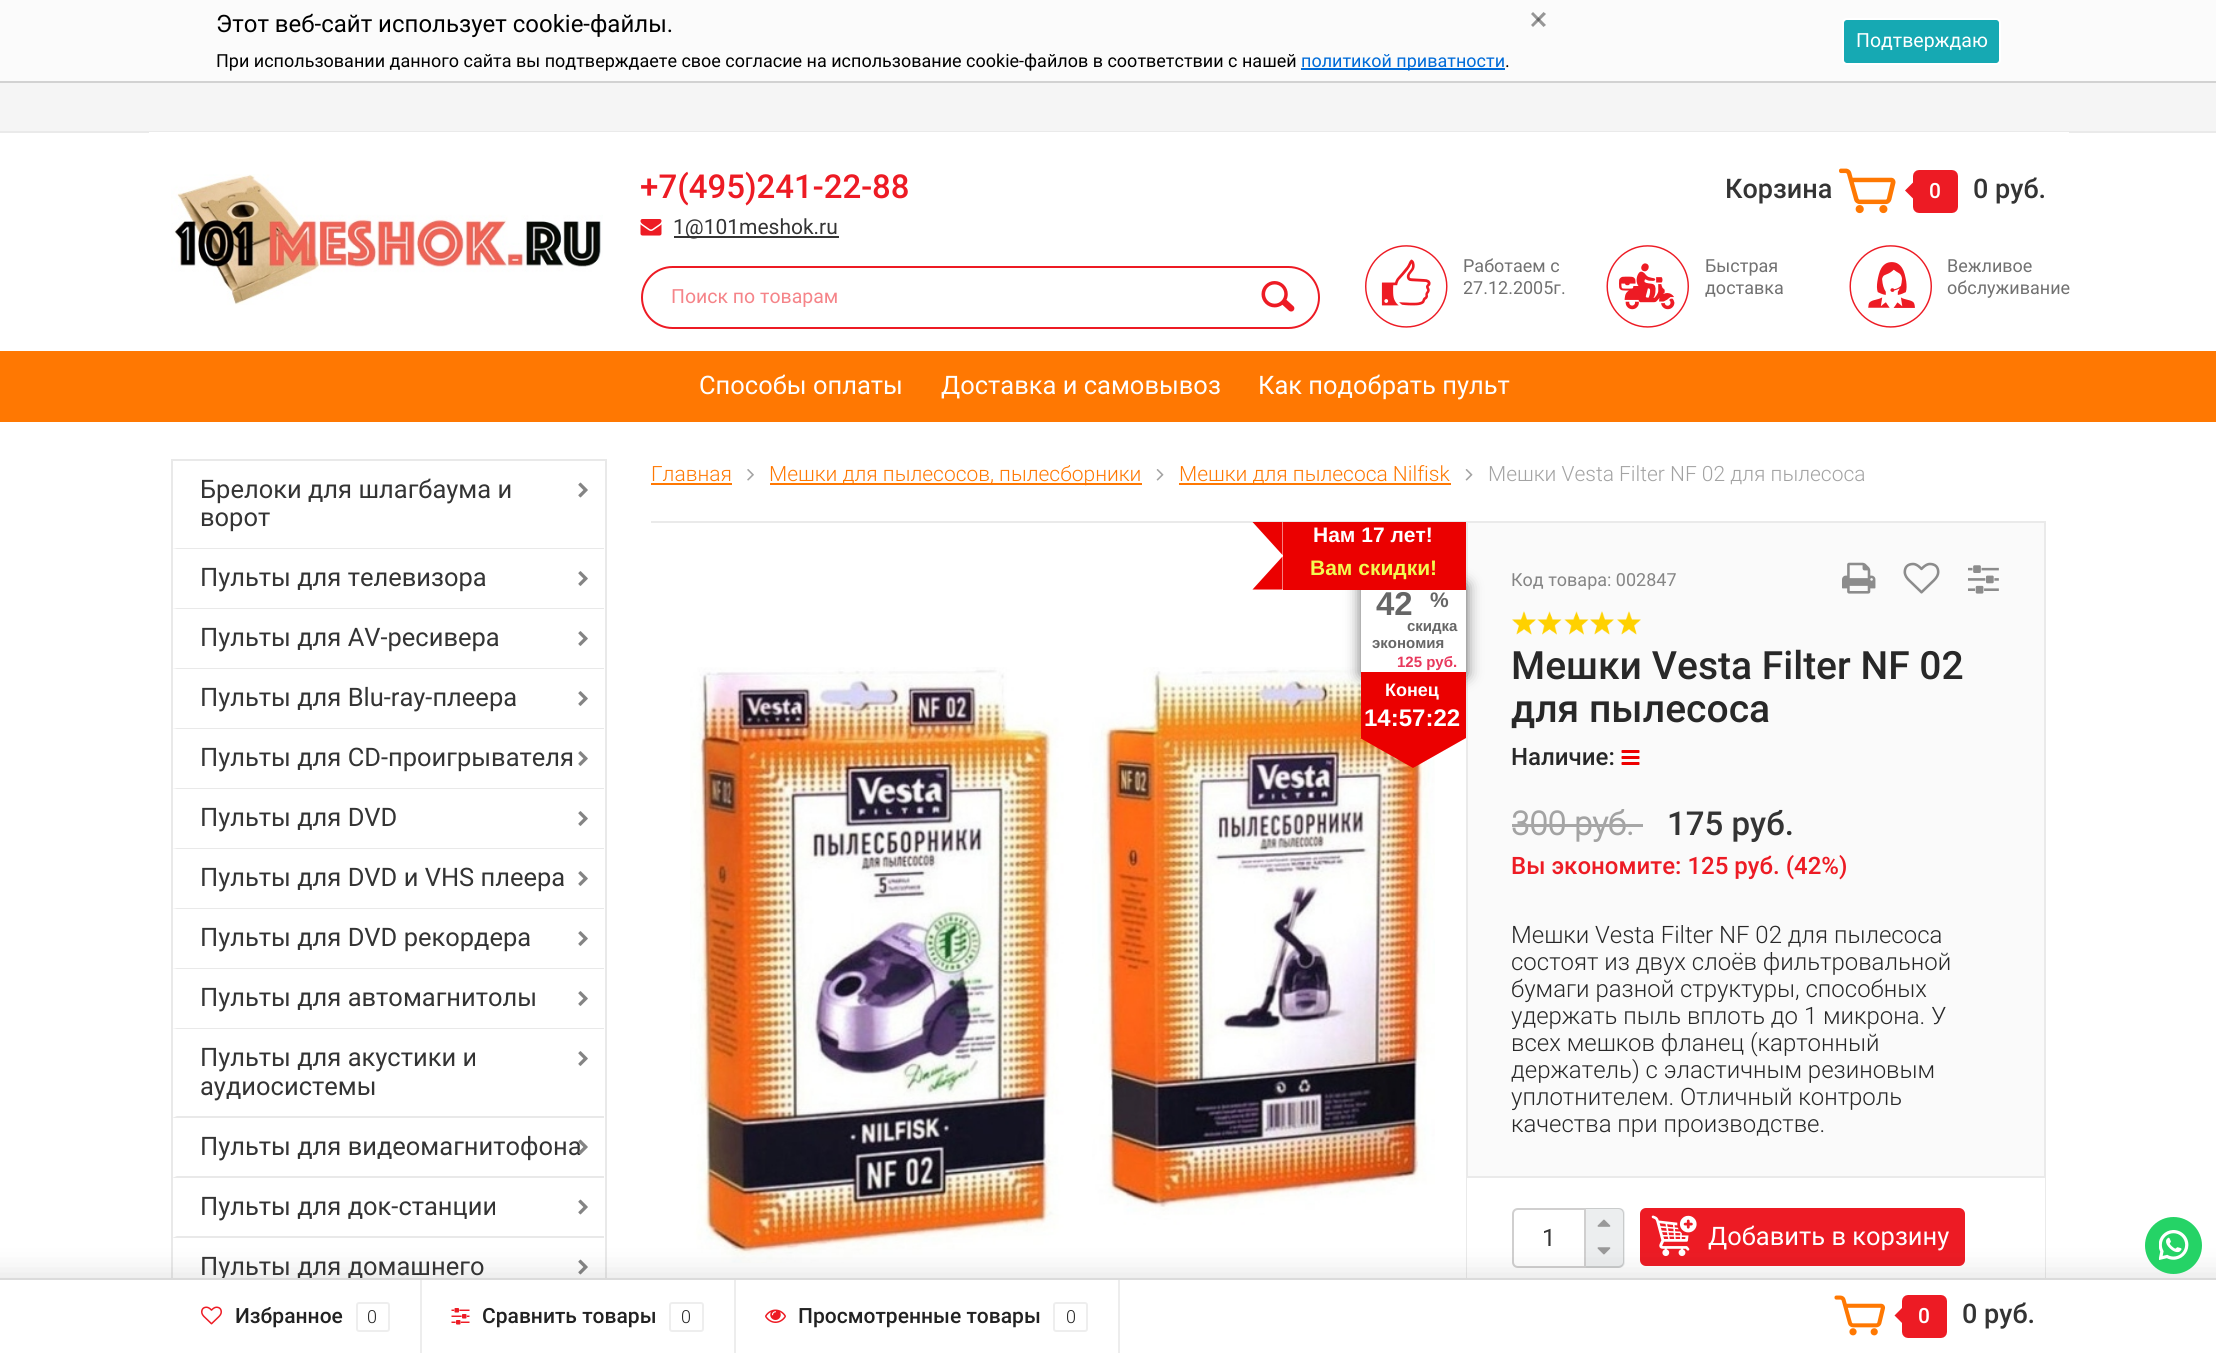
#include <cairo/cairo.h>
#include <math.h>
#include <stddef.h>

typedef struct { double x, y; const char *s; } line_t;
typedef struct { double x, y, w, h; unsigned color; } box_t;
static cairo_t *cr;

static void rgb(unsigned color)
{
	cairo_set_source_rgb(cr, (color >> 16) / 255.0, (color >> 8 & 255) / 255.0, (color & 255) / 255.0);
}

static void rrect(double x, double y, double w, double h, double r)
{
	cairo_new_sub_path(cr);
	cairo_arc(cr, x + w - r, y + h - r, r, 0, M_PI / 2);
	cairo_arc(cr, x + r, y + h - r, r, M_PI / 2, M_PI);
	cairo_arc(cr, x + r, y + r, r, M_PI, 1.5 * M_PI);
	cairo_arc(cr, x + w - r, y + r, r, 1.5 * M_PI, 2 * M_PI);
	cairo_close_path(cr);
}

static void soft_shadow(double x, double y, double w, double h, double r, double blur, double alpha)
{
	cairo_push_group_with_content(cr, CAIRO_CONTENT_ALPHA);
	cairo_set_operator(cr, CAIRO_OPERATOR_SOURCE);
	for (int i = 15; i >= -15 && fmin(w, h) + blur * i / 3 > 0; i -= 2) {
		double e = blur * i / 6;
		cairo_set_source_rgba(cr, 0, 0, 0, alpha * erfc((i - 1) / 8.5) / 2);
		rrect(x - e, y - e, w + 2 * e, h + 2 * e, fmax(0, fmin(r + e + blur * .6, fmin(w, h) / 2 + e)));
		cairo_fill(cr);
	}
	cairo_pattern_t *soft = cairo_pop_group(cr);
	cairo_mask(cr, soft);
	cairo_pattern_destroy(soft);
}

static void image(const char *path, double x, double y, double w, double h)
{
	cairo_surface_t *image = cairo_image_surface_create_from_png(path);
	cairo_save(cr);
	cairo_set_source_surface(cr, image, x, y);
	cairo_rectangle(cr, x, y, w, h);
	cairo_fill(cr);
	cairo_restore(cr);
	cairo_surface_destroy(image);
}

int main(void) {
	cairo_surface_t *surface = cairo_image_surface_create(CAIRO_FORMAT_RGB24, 2216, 1353);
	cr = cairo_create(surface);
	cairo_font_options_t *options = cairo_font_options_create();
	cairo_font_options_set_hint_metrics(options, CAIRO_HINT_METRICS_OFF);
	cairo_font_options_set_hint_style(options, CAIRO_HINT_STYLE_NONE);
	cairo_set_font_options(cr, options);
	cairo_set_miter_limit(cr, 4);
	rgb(0xffffff);
	cairo_paint(cr);
	rgb(0xfbfbfb);
	cairo_rectangle(cr, 0, 0, 2216, 81);
	cairo_fill(cr);
	rgb(0xd2d2d2);
	cairo_rectangle(cr, 0, 81, 2216, 2);
	cairo_fill(cr);
	rgb(0x979797);
	cairo_new_path(cr);
	cairo_move_to(cr, 1533, 12);
	cairo_line_to(cr, 1546, 25);
	cairo_line_to(cr, 1543.5, 27);
	cairo_line_to(cr, 1531, 14);
	cairo_close_path(cr);
	cairo_fill(cr);
	cairo_set_source_rgba(cr, 0.2, 0.2, 0.2, 0.5);
	cairo_new_path(cr);
	cairo_move_to(cr, 1531, 25);
	cairo_line_to(cr, 1543.5, 12);
	cairo_line_to(cr, 1546, 14);
	cairo_line_to(cr, 1533, 27);
	cairo_close_path(cr);
	cairo_fill(cr);
	rgb(0x006bd8);
	cairo_rectangle(cr, 1301, 68, 204, 2);
	cairo_fill(cr);
	rgb(0x16a9b3);
	rrect(1843, 19, 157, 45, 4);
	cairo_fill_preserve(cr);
	rgb(0xffffff);
	cairo_stroke(cr);
	{
		static const box_t items[] = {
			{0, 83, 2216, 48, 0xf5f5f5},
			{0, 131, 2216, 2, 0xeaeaea},
			{149, 132, 1920, 1, 0xffffff},
		};
		for (size_t i = 0; i < sizeof items / sizeof *items; i++) {
			rgb(items[i].color);
			cairo_rectangle(cr, items[i].x, items[i].y, items[i].w, items[i].h);
			cairo_fill(cr);
		}
	}
	image("img/1.png", 171, 174, 432, 131);
	image("img/2.png", 640, 219, 22, 17);
	rgb(0x343434);
	cairo_rectangle(cr, 674, 236, 165, 2);
	cairo_fill(cr);
	image("img/3.png", 1839, 168, 57, 46);
	rgb(0xed1b24);
	rrect(1916, 173, 39, 37, 3);
	cairo_fill_preserve(cr);
	cairo_set_line_width(cr, 6);
	cairo_stroke(cr);
	cairo_new_path(cr);
	cairo_move_to(cr, 1918.5, 177);
	cairo_line_to(cr, 1918.5, 204);
	cairo_line_to(cr, 1905, 190.5);
	cairo_close_path(cr);
	cairo_fill(cr);
	rrect(642, 267, 677, 61, 30.5);
	cairo_set_line_width(cr, 2);
	cairo_stroke(cr);
	image("img/4.png", 1261, 281, 34, 31);
	image("img/5.png", 1365, 245, 83, 83);
	image("img/6.png", 1606, 245, 83, 83);
	image("img/7.png", 1849, 245, 83, 83);
	{
		static const box_t items[] = {
			{0, 351, 2216, 71, 0xff7802},
			{171, 459, 435, 2, 0xe9e9e9},
			{605, 459, 2, 819, 0xe9e9e9},
			{171, 459, 2, 819, 0xe9e9e9},
		};
		for (size_t i = 0; i < sizeof items / sizeof *items; i++) {
			rgb(items[i].color);
			cairo_rectangle(cr, items[i].x, items[i].y, items[i].w, items[i].h);
			cairo_fill(cr);
		}
	}
	cairo_new_path(cr);
	cairo_move_to(cr, 604, 549);
	cairo_line_to(cr, 172, 549);
	cairo_line_to(cr, 177, 548);
	cairo_line_to(cr, 604, 548);
	cairo_close_path(cr);
	cairo_fill(cr);
	image("img/8.png", 578, 482, 10, 16);
	cairo_new_path(cr);
	cairo_move_to(cr, 604, 609);
	cairo_line_to(cr, 172, 609);
	cairo_line_to(cr, 177, 608);
	cairo_line_to(cr, 604, 608);
	cairo_close_path(cr);
	cairo_fill(cr);
	image("img/9.png", 578, 571, 10, 15);
	cairo_new_path(cr);
	cairo_move_to(cr, 604, 669);
	cairo_line_to(cr, 172, 669);
	cairo_line_to(cr, 177, 668);
	cairo_line_to(cr, 604, 668);
	cairo_close_path(cr);
	cairo_fill(cr);
	image("img/9.png", 578, 631, 10, 15);
	cairo_new_path(cr);
	cairo_move_to(cr, 604, 729);
	cairo_line_to(cr, 172, 729);
	cairo_line_to(cr, 177, 728);
	cairo_line_to(cr, 604, 728);
	cairo_close_path(cr);
	cairo_fill(cr);
	image("img/9.png", 578, 691, 10, 15);
	cairo_new_path(cr);
	cairo_move_to(cr, 604, 789);
	cairo_line_to(cr, 172, 789);
	cairo_line_to(cr, 177, 788);
	cairo_line_to(cr, 604, 788);
	cairo_close_path(cr);
	cairo_fill(cr);
	image("img/9.png", 578, 751, 10, 15);
	cairo_new_path(cr);
	cairo_move_to(cr, 604, 849);
	cairo_line_to(cr, 172, 849);
	cairo_line_to(cr, 177, 848);
	cairo_line_to(cr, 604, 848);
	cairo_close_path(cr);
	cairo_fill(cr);
	image("img/9.png", 578, 811, 10, 15);
	cairo_new_path(cr);
	cairo_move_to(cr, 604, 909);
	cairo_line_to(cr, 172, 909);
	cairo_line_to(cr, 177, 908);
	cairo_line_to(cr, 604, 908);
	cairo_close_path(cr);
	cairo_fill(cr);
	image("img/9.png", 578, 871, 10, 15);
	cairo_new_path(cr);
	cairo_move_to(cr, 604, 969);
	cairo_line_to(cr, 172, 969);
	cairo_line_to(cr, 177, 968);
	cairo_line_to(cr, 604, 968);
	cairo_close_path(cr);
	cairo_fill(cr);
	image("img/9.png", 578, 931, 10, 15);
	cairo_new_path(cr);
	cairo_move_to(cr, 604, 1029);
	cairo_line_to(cr, 172, 1029);
	cairo_line_to(cr, 177, 1028);
	cairo_line_to(cr, 604, 1028);
	cairo_close_path(cr);
	cairo_fill(cr);
	image("img/9.png", 578, 991, 10, 15);
	cairo_new_path(cr);
	cairo_move_to(cr, 604, 1118);
	cairo_line_to(cr, 172, 1118);
	cairo_line_to(cr, 177, 1116);
	cairo_line_to(cr, 604, 1116);
	cairo_close_path(cr);
	cairo_fill(cr);
	image("img/9.png", 578, 1051, 10, 15);
	cairo_new_path(cr);
	cairo_move_to(cr, 604, 1178);
	cairo_line_to(cr, 172, 1178);
	cairo_line_to(cr, 177, 1176);
	cairo_line_to(cr, 604, 1176);
	cairo_close_path(cr);
	cairo_fill(cr);
	cairo_new_path(cr);
	cairo_move_to(cr, 604, 1238);
	cairo_line_to(cr, 172, 1238);
	cairo_line_to(cr, 177, 1236);
	cairo_line_to(cr, 604, 1236);
	cairo_close_path(cr);
	cairo_fill(cr);
	image("img/8.png", 578, 1199, 10, 16);
	image("img/8.png", 578, 1259, 10, 16);
	rgb(0xff7802);
	cairo_rectangle(cr, 651, 483, 81, 2);
	cairo_fill(cr);
	image("img/11.png", 747, 469, 7, 12);
	cairo_rectangle(cr, 770, 483, 372, 2);
	cairo_fill(cr);
	image("img/12.png", 1156, 469, 8, 12);
	cairo_rectangle(cr, 1179, 483, 272, 2);
	cairo_fill(cr);
	image("img/12.png", 1465, 469, 8, 12);
	rgb(0xeaeaea);
	cairo_rectangle(cr, 651, 521, 815, 2);
	cairo_fill(cr);
	image("img/13.png", 690, 667, 745, 596);
	rgb(0xfafafa);
	cairo_rectangle(cr, 1468, 523, 576, 653);
	cairo_fill(cr);
	cairo_rectangle(cr, 1467, 522, 578, 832);
	rgb(0xeaeaea);
	cairo_stroke(cr);
	rgb(0x666666);
	soft_shadow(1361, 585, 105, 90, 0, 7.5, 1);
	rgb(0xeb0000);
	cairo_rectangle(cr, 1283, 522, 183, 68);
	cairo_fill(cr);
	cairo_new_path(cr);
	cairo_move_to(cr, 1282.5, 522);
	cairo_line_to(cr, 1282.5, 555);
	cairo_line_to(cr, 1252.5, 522);
	cairo_close_path(cr);
	cairo_fill(cr);
	cairo_new_path(cr);
	cairo_move_to(cr, 1282.5, 556.5);
	cairo_line_to(cr, 1282.5, 589.5);
	cairo_line_to(cr, 1252.5, 589.5);
	cairo_close_path(cr);
	cairo_fill(cr);
	rgb(0xffffff);
	cairo_rectangle(cr, 1361, 590, 105, 82);
	cairo_fill(cr);
	rgb(0xeb0000);
	cairo_rectangle(cr, 1361, 672, 105, 66);
	cairo_fill(cr);
	cairo_new_path(cr);
	cairo_move_to(cr, 1360, 738);
	cairo_line_to(cr, 1466, 738);
	cairo_line_to(cr, 1413, 768);
	cairo_close_path(cr);
	cairo_fill(cr);
	image("img/14.png", 1842, 562, 34, 32);
	image("img/15.png", 1903, 562, 37, 32);
	image("img/16.png", 1968, 565, 31, 29);
	image("img/17.png", 1512, 611, 24, 24);
	image("img/18.png", 1537, 611, 25, 24);
	image("img/18.png", 1564, 611, 25, 24);
	image("img/19.png", 1590, 611, 24, 24);
	image("img/19.png", 1617, 611, 24, 24);
	image("img/20.png", 1621, 750, 19, 15);
	rgb(0xffffff);
	cairo_rectangle(cr, 1467, 1178, 578, 100);
	cairo_fill(cr);
	rgb(0xeaeaea);
	cairo_rectangle(cr, 1467, 1176, 578, 2);
	cairo_fill(cr);
	cairo_new_path(cr);
	cairo_move_to(cr, 1518, 1209);
	cairo_line_to(cr, 1585, 1209);
	cairo_line_to(cr, 1585, 1267);
	cairo_line_to(cr, 1518, 1267);
	cairo_curve_to(cr, 1515, 1267, 1513, 1265, 1513, 1262);
	cairo_line_to(cr, 1513, 1214);
	cairo_curve_to(cr, 1513, 1211, 1515, 1209, 1518, 1209);
	cairo_close_path(cr);
	rgb(0xd0cfcf);
	cairo_stroke(cr);
	rgb(0xeceeef);
	cairo_new_path(cr);
	cairo_move_to(cr, 1586, 1208);
	cairo_line_to(cr, 1619, 1208);
	cairo_curve_to(cr, 1622.5, 1208, 1625, 1210.5, 1625, 1214);
	cairo_line_to(cr, 1625, 1262);
	cairo_curve_to(cr, 1625, 1265.5, 1622.5, 1268, 1619, 1268);
	cairo_line_to(cr, 1586, 1268);
	cairo_close_path(cr);
	cairo_fill(cr);
	cairo_set_source_rgba(cr, 0, 0, 0, 0.15);
	cairo_set_fill_rule(cr, CAIRO_FILL_RULE_EVEN_ODD);
	cairo_new_path(cr);
	cairo_move_to(cr, 1586, 1208);
	cairo_line_to(cr, 1618, 1208);
	cairo_curve_to(cr, 1622, 1208, 1624, 1210, 1624, 1214);
	cairo_line_to(cr, 1624, 1262);
	cairo_curve_to(cr, 1624, 1265, 1622, 1268, 1618, 1268);
	cairo_line_to(cr, 1586, 1268);
	cairo_close_path(cr);
	cairo_move_to(cr, 1586, 1209);
	cairo_line_to(cr, 1618, 1209);
	cairo_curve_to(cr, 1621, 1209, 1623, 1211, 1623, 1214);
	cairo_line_to(cr, 1623, 1262);
	cairo_curve_to(cr, 1623, 1264, 1621, 1266, 1618, 1266);
	cairo_line_to(cr, 1586, 1266);
	cairo_close_path(cr);
	cairo_fill(cr);
	image("img/21.png", 1597, 1219, 14, 8);
	image("img/22.png", 1597, 1247, 14, 8);
	rgb(0xed1b24);
	rrect(1640, 1208, 325, 58, 6);
	cairo_fill(cr);
	image("img/23.png", 1651, 1215, 46, 42);
	rgb(0x323232);
	soft_shadow(-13, 1275, 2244, 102, 0, 15, 0.15);
	rgb(0x25d366);
	cairo_arc(cr, 2173.5, 1245.5, 28.5, 0, 2 * M_PI);
	cairo_fill(cr);
	image("img/24.png", 2159, 1230, 30, 30);
	cairo_select_font_face(cr, "Roboto", CAIRO_FONT_SLANT_NORMAL, CAIRO_FONT_WEIGHT_NORMAL);
	cairo_set_font_size(cr, 24);
	rgb(0x000000);
	cairo_move_to(cr, 216, 32);
	cairo_show_text(cr, "Этот веб-сайт использует cookie-файлы.");
	cairo_set_font_size(cr, 18);
	cairo_move_to(cr, 216, 67);
	cairo_show_text(cr, "При использовании данного сайта вы подтверждаете свое согласие на использование cookie-файлов в соответствии с нашей");
	rgb(0x006bd8);
	cairo_move_to(cr, 1301, 67);
	cairo_show_text(cr, "политикой приватности");
	rgb(0x000000);
	cairo_move_to(cr, 1505, 67);
	cairo_show_text(cr, ".");
	cairo_set_font_size(cr, 19.5);
	rgb(0xffffff);
	cairo_move_to(cr, 1856, 47);
	cairo_show_text(cr, "Подтверждаю");
	cairo_select_font_face(cr, "Roboto Medium", CAIRO_FONT_SLANT_NORMAL, CAIRO_FONT_WEIGHT_NORMAL);
	cairo_set_font_size(cr, 33);
	rgb(0xed1b24);
	cairo_move_to(cr, 640, 198);
	cairo_show_text(cr, "+7(495)241-22-88");
	cairo_select_font_face(cr, "Roboto", CAIRO_FONT_SLANT_NORMAL, CAIRO_FONT_WEIGHT_NORMAL);
	cairo_set_font_size(cr, 21);
	rgb(0x343434);
	cairo_move_to(cr, 673, 234);
	cairo_show_text(cr, "1@101meshok.ru");
	cairo_select_font_face(cr, "Roboto Medium", CAIRO_FONT_SLANT_NORMAL, CAIRO_FONT_WEIGHT_NORMAL);
	cairo_set_font_size(cr, 27);
	cairo_move_to(cr, 1725, 198);
	cairo_show_text(cr, "Корзина");
	cairo_set_font_size(cr, 21);
	rgb(0xffffff);
	cairo_move_to(cr, 1929, 198);
	cairo_show_text(cr, "0");
	cairo_set_font_size(cr, 27);
	rgb(0x343434);
	cairo_move_to(cr, 1973, 198);
	cairo_show_text(cr, "0 руб.");
	cairo_select_font_face(cr, "Roboto", CAIRO_FONT_SLANT_NORMAL, CAIRO_FONT_WEIGHT_NORMAL);
	cairo_set_font_size(cr, 19.5);
	rgb(0xf58489);
	cairo_move_to(cr, 671, 303);
	cairo_show_text(cr, "Поиск по товарам");
	cairo_set_font_size(cr, 18);
	rgb(0x717171);
	{
		static const line_t items[] = {
			{1463, 272, "Работаем с"},
			{1463, 294, "27.12.2005г."},
			{1705, 272, "Быстрая"},
			{1705, 294, "доставка"},
			{1947, 272, "Вежливое"},
			{1947, 294, "обслуживание"},
		};
		for (size_t i = 0; i < sizeof items / sizeof *items; i++) {
			cairo_move_to(cr, items[i].x, items[i].y);
			cairo_show_text(cr, items[i].s);
		}
	}
	cairo_set_font_size(cr, 25.5);
	rgb(0xffffff);
	{
		static const line_t items[] = {
			{699, 394, "Способы оплаты"},
			{941, 394, "Доставка и самовывоз"},
			{1258, 394, "Как подобрать пульт"},
		};
		for (size_t i = 0; i < sizeof items / sizeof *items; i++) {
			cairo_move_to(cr, items[i].x, items[i].y);
			cairo_show_text(cr, items[i].s);
		}
	}
	rgb(0x343434);
	{
		static const line_t items[] = {
			{200, 498, "Брелоки для шлагбаума и"},
			{200, 526, "ворот"},
			{200, 586, "Пульты для телевизора"},
			{200, 646, "Пульты для AV-ресивера"},
			{200, 706, "Пульты для Blu-ray-плеера"},
			{200, 766, "Пульты для CD-проигрывателя"},
			{200, 826, "Пульты для DVD"},
			{200, 886, "Пульты для DVD и VHS плеера"},
			{200, 946, "Пульты для DVD рекордера"},
			{200, 1006, "Пульты для автомагнитолы"},
			{200, 1066, "Пульты для акустики и"},
			{200, 1095, "аудиосистемы"},
			{200, 1155, "Пульты для видеомагнитофона"},
		};
		for (size_t i = 0; i < sizeof items / sizeof *items; i++) {
			cairo_move_to(cr, items[i].x, items[i].y);
			cairo_show_text(cr, items[i].s);
		}
	}
	image("img/10.png", 578, 1139, 10, 16);
	cairo_move_to(cr, 200, 1215);
	cairo_show_text(cr, "Пульты для док-станции");
	cairo_move_to(cr, 200, 1275);
	cairo_show_text(cr, "Пульты для домашнего");
	cairo_select_font_face(cr, "Roboto Light", CAIRO_FONT_SLANT_NORMAL, CAIRO_FONT_WEIGHT_NORMAL);
	cairo_set_font_size(cr, 21);
	rgb(0xff7802);
	{
		static const line_t items[] = {
			{651, 481, "Главная"},
			{769, 481, "Мешки для пылесосов, пылесборники"},
			{1179, 481, "Мешки для пылесоса Nilfisk"},
		};
		for (size_t i = 0; i < sizeof items / sizeof *items; i++) {
			cairo_move_to(cr, items[i].x, items[i].y);
			cairo_show_text(cr, items[i].s);
		}
	}
	rgb(0xa3a3a3);
	cairo_move_to(cr, 1488, 481);
	cairo_show_text(cr, "Мешки Vesta Filter NF 02 для пылесоса");
	cairo_select_font_face(cr, "Liberation Sans", CAIRO_FONT_SLANT_NORMAL, CAIRO_FONT_WEIGHT_BOLD);
	rgb(0xffffff);
	cairo_move_to(cr, 1313, 542);
	cairo_show_text(cr, "Нам 17 лет!");
	rgb(0xf2fa50);
	cairo_move_to(cr, 1310, 575);
	cairo_show_text(cr, "Вам скидки!");
	cairo_set_font_size(cr, 33);
	rgb(0x666666);
	cairo_move_to(cr, 1376, 615);
	cairo_show_text(cr, "42");
	cairo_set_font_size(cr, 21);
	cairo_move_to(cr, 1430, 607);
	cairo_show_text(cr, "%");
	cairo_set_font_size(cr, 15);
	cairo_move_to(cr, 1407, 631);
	cairo_show_text(cr, "скидка");
	cairo_move_to(cr, 1372, 648);
	cairo_show_text(cr, "экономия");
	rgb(0xe8385c);
	cairo_move_to(cr, 1397, 667);
	cairo_show_text(cr, "125 руб.");
	cairo_set_font_size(cr, 18);
	rgb(0xffffff);
	cairo_move_to(cr, 1385, 696);
	cairo_show_text(cr, "Конец");
	cairo_set_font_size(cr, 24);
	cairo_move_to(cr, 1364, 726);
	cairo_show_text(cr, "14:57:22");
	cairo_select_font_face(cr, "Roboto", CAIRO_FONT_SLANT_NORMAL, CAIRO_FONT_WEIGHT_NORMAL);
	cairo_set_font_size(cr, 18);
	rgb(0x858585);
	cairo_move_to(cr, 1511, 586);
	cairo_show_text(cr, "Код товара: 002847");
	cairo_select_font_face(cr, "Roboto Medium", CAIRO_FONT_SLANT_NORMAL, CAIRO_FONT_WEIGHT_NORMAL);
	cairo_set_font_size(cr, 39);
	rgb(0x282828);
	cairo_move_to(cr, 1511, 679);
	cairo_show_text(cr, "Мешки Vesta Filter NF 02");
	cairo_move_to(cr, 1511, 722);
	cairo_show_text(cr, "для пылесоса");
	cairo_set_font_size(cr, 24);
	cairo_move_to(cr, 1511, 765);
	cairo_show_text(cr, "Наличие:");
	cairo_select_font_face(cr, "Roboto", CAIRO_FONT_SLANT_NORMAL, CAIRO_FONT_WEIGHT_BOLD);
	cairo_set_font_size(cr, 33);
	rgb(0xa3a3a3);
	cairo_move_to(cr, 1511, 835);
	cairo_show_text(cr, "300 руб.");
	rgb(0xa7a7a7);
	cairo_rectangle(cr, 1512, 824, 131, 3);
	cairo_fill(cr);
	cairo_select_font_face(cr, "Roboto Medium", CAIRO_FONT_SLANT_NORMAL, CAIRO_FONT_WEIGHT_NORMAL);
	rgb(0x343434);
	cairo_move_to(cr, 1667, 835);
	cairo_show_text(cr, "175 руб.");
	cairo_set_font_size(cr, 24);
	rgb(0xed1b24);
	cairo_move_to(cr, 1511, 874);
	cairo_show_text(cr, "Вы экономите: 125 руб. (42%)");
	cairo_select_font_face(cr, "Roboto Light", CAIRO_FONT_SLANT_NORMAL, CAIRO_FONT_WEIGHT_NORMAL);
	rgb(0x282828);
	{
		static const line_t items[] = {
			{1511, 943, "Мешки Vesta Filter NF 02 для пылесоса"},
			{1511, 970, "состоят из двух слоёв фильтровальной"},
			{1511, 997, "бумаги разной структуры, способных"},
			{1511, 1024, "удержать пыль вплоть до 1 микрона. У"},
			{1511, 1051, "всех мешков фланец (картонный"},
			{1511, 1078, "держатель) с эластичным резиновым"},
			{1511, 1105, "уплотнителем. Отличный контроль"},
			{1511, 1132, "качества при производстве."},
		};
		for (size_t i = 0; i < sizeof items / sizeof *items; i++) {
			cairo_move_to(cr, items[i].x, items[i].y);
			cairo_show_text(cr, items[i].s);
		}
	}
	cairo_select_font_face(cr, "Roboto", CAIRO_FONT_SLANT_NORMAL, CAIRO_FONT_WEIGHT_NORMAL);
	rgb(0x343434);
	cairo_move_to(cr, 1542, 1246);
	cairo_show_text(cr, "1");
	cairo_set_font_size(cr, 25.5);
	rgb(0xffffff);
	cairo_move_to(cr, 1708, 1245);
	cairo_show_text(cr, "Добавить в корзину");
	{
		static const box_t items[] = {
			{0, 1280, 2216, 73, 0xffffff},
			{0, 1278, 2216, 2, 0xdbdbdb},
			{420, 1280, 2, 73, 0xededed},
		};
		for (size_t i = 0; i < sizeof items / sizeof *items; i++) {
			rgb(items[i].color);
			cairo_rectangle(cr, items[i].x, items[i].y, items[i].w, items[i].h);
			cairo_fill(cr);
		}
	}
	image("img/25.png", 201, 1306, 21, 19);
	cairo_select_font_face(cr, "Roboto Medium", CAIRO_FONT_SLANT_NORMAL, CAIRO_FONT_WEIGHT_NORMAL);
	cairo_set_font_size(cr, 21);
	rgb(0x222222);
	cairo_move_to(cr, 235, 1323);
	cairo_show_text(cr, "Избранное");
	rrect(357, 1303, 32, 28, 2);
	rgb(0xeeeeee);
	cairo_stroke(cr);
	cairo_select_font_face(cr, "Roboto Light", CAIRO_FONT_SLANT_NORMAL, CAIRO_FONT_WEIGHT_NORMAL);
	cairo_set_font_size(cr, 18);
	rgb(0x222222);
	cairo_move_to(cr, 367, 1323);
	cairo_show_text(cr, "0");
	rgb(0xededed);
	cairo_rectangle(cr, 734, 1280, 2, 73);
	cairo_fill(cr);
	image("img/26.png", 451, 1308, 19, 17);
	cairo_select_font_face(cr, "Roboto Medium", CAIRO_FONT_SLANT_NORMAL, CAIRO_FONT_WEIGHT_NORMAL);
	cairo_set_font_size(cr, 21);
	rgb(0x222222);
	cairo_move_to(cr, 482, 1323);
	cairo_show_text(cr, "Сравнить товары");
	rrect(670, 1303, 33, 28, 2);
	rgb(0xeeeeee);
	cairo_stroke(cr);
	cairo_select_font_face(cr, "Roboto Light", CAIRO_FONT_SLANT_NORMAL, CAIRO_FONT_WEIGHT_NORMAL);
	cairo_set_font_size(cr, 18);
	rgb(0x222222);
	cairo_move_to(cr, 681, 1323);
	cairo_show_text(cr, "0");
	rgb(0xededed);
	cairo_rectangle(cr, 1118, 1280, 2, 73);
	cairo_fill(cr);
	image("img/27.png", 765, 1309, 21, 14);
	cairo_select_font_face(cr, "Roboto Medium", CAIRO_FONT_SLANT_NORMAL, CAIRO_FONT_WEIGHT_NORMAL);
	cairo_set_font_size(cr, 21);
	rgb(0x222222);
	cairo_move_to(cr, 798, 1323);
	cairo_show_text(cr, "Просмотренные товары");
	rrect(1054, 1303, 33, 28, 2);
	rgb(0xeeeeee);
	cairo_stroke(cr);
	cairo_select_font_face(cr, "Roboto Light", CAIRO_FONT_SLANT_NORMAL, CAIRO_FONT_WEIGHT_NORMAL);
	cairo_set_font_size(cr, 18);
	rgb(0x222222);
	cairo_move_to(cr, 1066, 1323);
	cairo_show_text(cr, "0");
	image("img/28.png", 1834, 1295, 52, 41);
	rgb(0xed1b24);
	rrect(1905, 1298, 39, 37, 3);
	cairo_fill_preserve(cr);
	cairo_set_line_width(cr, 6);
	cairo_stroke(cr);
	cairo_set_fill_rule(cr, CAIRO_FILL_RULE_WINDING);
	cairo_new_path(cr);
	cairo_move_to(cr, 1908, 1302);
	cairo_line_to(cr, 1908, 1329);
	cairo_line_to(cr, 1894.5, 1315.5);
	cairo_close_path(cr);
	cairo_fill(cr);
	cairo_select_font_face(cr, "Roboto Medium", CAIRO_FONT_SLANT_NORMAL, CAIRO_FONT_WEIGHT_NORMAL);
	cairo_set_font_size(cr, 21);
	rgb(0xffffff);
	cairo_move_to(cr, 1918, 1323);
	cairo_show_text(cr, "0");
	cairo_set_font_size(cr, 27);
	rgb(0x343434);
	cairo_move_to(cr, 1962, 1323);
	cairo_show_text(cr, "0 руб.");
	cairo_surface_write_to_png(surface, "page.png");
	cairo_font_options_destroy(options);
	cairo_destroy(cr);
	cairo_surface_destroy(surface);
	return 0;
}
